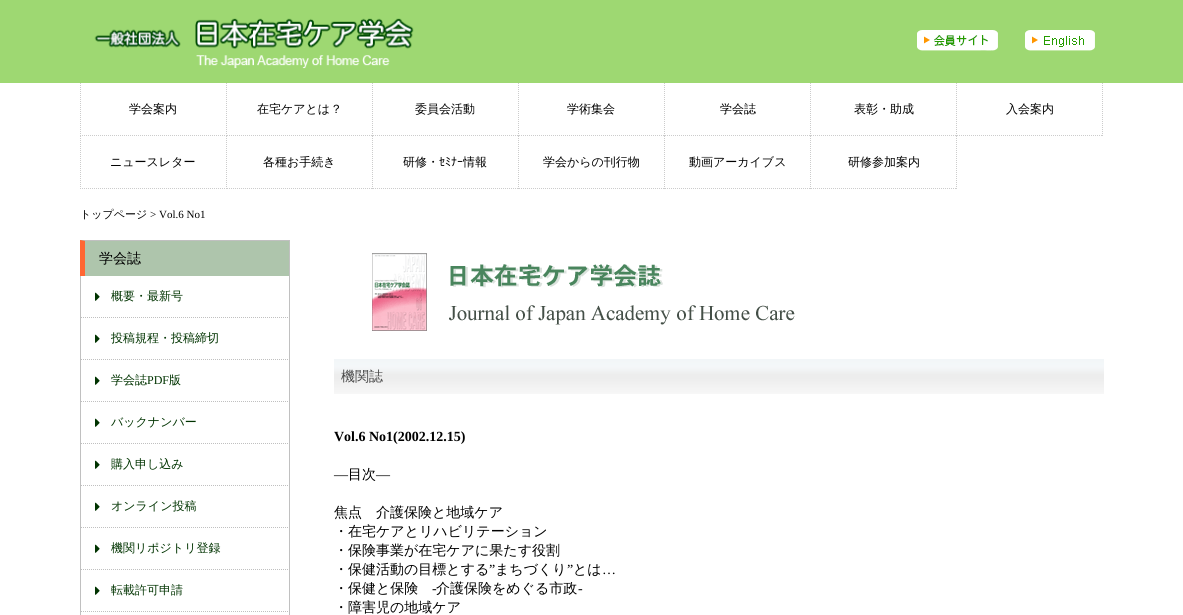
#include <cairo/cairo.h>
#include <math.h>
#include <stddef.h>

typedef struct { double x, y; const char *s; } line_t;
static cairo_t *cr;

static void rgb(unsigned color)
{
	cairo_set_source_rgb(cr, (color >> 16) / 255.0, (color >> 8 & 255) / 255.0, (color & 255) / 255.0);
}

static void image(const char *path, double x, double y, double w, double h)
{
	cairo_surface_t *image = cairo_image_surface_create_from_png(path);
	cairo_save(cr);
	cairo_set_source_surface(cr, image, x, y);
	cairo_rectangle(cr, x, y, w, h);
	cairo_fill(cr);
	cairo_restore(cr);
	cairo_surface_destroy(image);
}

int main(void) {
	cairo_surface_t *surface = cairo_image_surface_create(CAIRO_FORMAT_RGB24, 1183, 615);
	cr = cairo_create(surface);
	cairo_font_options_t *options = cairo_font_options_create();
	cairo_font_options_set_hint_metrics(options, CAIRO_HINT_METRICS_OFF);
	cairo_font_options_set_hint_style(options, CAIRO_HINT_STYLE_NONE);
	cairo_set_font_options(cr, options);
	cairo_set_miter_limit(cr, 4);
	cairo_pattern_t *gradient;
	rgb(0xffffff);
	cairo_paint(cr);
	rgb(0x9ed872);
	cairo_rectangle(cr, 0, 0, 1183, 83);
	cairo_fill(cr);
	image("img/1.png", 94, 18, 320, 51);
	image("img/2.png", 917, 30, 81, 21);
	image("img/3.png", 1025, 30, 70, 21);
	cairo_new_path(cr);
	cairo_move_to(cr, 226.5, 83);
	cairo_line_to(cr, 226.5, 136);
	rgb(0xcccccc);
	cairo_set_line_width(cr, 1);
	cairo_set_dash(cr, (double[]){1, 1}, 2, 0);
	cairo_stroke(cr);
	cairo_new_path(cr);
	cairo_move_to(cr, 80, 135.5);
	cairo_line_to(cr, 227, 135.5);
	cairo_stroke(cr);
	cairo_new_path(cr);
	cairo_move_to(cr, 80.5, 83);
	cairo_line_to(cr, 80.5, 136);
	cairo_stroke(cr);
	cairo_new_path(cr);
	cairo_move_to(cr, 372.5, 83);
	cairo_line_to(cr, 372.5, 136);
	cairo_stroke(cr);
	cairo_new_path(cr);
	cairo_move_to(cr, 227, 135.5);
	cairo_line_to(cr, 373, 135.5);
	cairo_stroke(cr);
	cairo_new_path(cr);
	cairo_move_to(cr, 518.5, 83);
	cairo_line_to(cr, 518.5, 136);
	cairo_stroke(cr);
	cairo_new_path(cr);
	cairo_move_to(cr, 373, 135.5);
	cairo_line_to(cr, 519, 135.5);
	cairo_stroke(cr);
	cairo_new_path(cr);
	cairo_move_to(cr, 664.5, 83);
	cairo_line_to(cr, 664.5, 136);
	cairo_stroke(cr);
	cairo_new_path(cr);
	cairo_move_to(cr, 519, 135.5);
	cairo_line_to(cr, 665, 135.5);
	cairo_stroke(cr);
	cairo_new_path(cr);
	cairo_move_to(cr, 810.5, 83);
	cairo_line_to(cr, 810.5, 136);
	cairo_stroke(cr);
	cairo_new_path(cr);
	cairo_move_to(cr, 665, 135.5);
	cairo_line_to(cr, 811, 135.5);
	cairo_stroke(cr);
	cairo_new_path(cr);
	cairo_move_to(cr, 956.5, 83);
	cairo_line_to(cr, 956.5, 136);
	cairo_stroke(cr);
	cairo_new_path(cr);
	cairo_move_to(cr, 811, 135.5);
	cairo_line_to(cr, 957, 135.5);
	cairo_stroke(cr);
	cairo_new_path(cr);
	cairo_move_to(cr, 1102.5, 83);
	cairo_line_to(cr, 1102.5, 136);
	cairo_stroke(cr);
	cairo_new_path(cr);
	cairo_move_to(cr, 957, 135.5);
	cairo_line_to(cr, 1103, 135.5);
	cairo_stroke(cr);
	cairo_new_path(cr);
	cairo_move_to(cr, 226.5, 136);
	cairo_line_to(cr, 226.5, 189);
	cairo_stroke(cr);
	cairo_new_path(cr);
	cairo_move_to(cr, 80, 188.5);
	cairo_line_to(cr, 227, 188.5);
	cairo_stroke(cr);
	cairo_new_path(cr);
	cairo_move_to(cr, 80.5, 136);
	cairo_line_to(cr, 80.5, 189);
	cairo_stroke(cr);
	cairo_new_path(cr);
	cairo_move_to(cr, 372.5, 136);
	cairo_line_to(cr, 372.5, 189);
	cairo_stroke(cr);
	cairo_new_path(cr);
	cairo_move_to(cr, 227, 188.5);
	cairo_line_to(cr, 373, 188.5);
	cairo_stroke(cr);
	cairo_new_path(cr);
	cairo_move_to(cr, 518.5, 136);
	cairo_line_to(cr, 518.5, 189);
	cairo_stroke(cr);
	cairo_new_path(cr);
	cairo_move_to(cr, 373, 188.5);
	cairo_line_to(cr, 519, 188.5);
	cairo_stroke(cr);
	cairo_new_path(cr);
	cairo_move_to(cr, 664.5, 136);
	cairo_line_to(cr, 664.5, 189);
	cairo_stroke(cr);
	cairo_new_path(cr);
	cairo_move_to(cr, 519, 188.5);
	cairo_line_to(cr, 665, 188.5);
	cairo_stroke(cr);
	cairo_new_path(cr);
	cairo_move_to(cr, 810.5, 136);
	cairo_line_to(cr, 810.5, 189);
	cairo_stroke(cr);
	cairo_new_path(cr);
	cairo_move_to(cr, 665, 188.5);
	cairo_line_to(cr, 811, 188.5);
	cairo_stroke(cr);
	cairo_new_path(cr);
	cairo_move_to(cr, 956.5, 136);
	cairo_line_to(cr, 956.5, 189);
	cairo_stroke(cr);
	cairo_new_path(cr);
	cairo_move_to(cr, 811, 188.5);
	cairo_line_to(cr, 957, 188.5);
	cairo_stroke(cr);
	rgb(0xaec5ac);
	cairo_rectangle(cr, 80, 240, 209, 36);
	cairo_fill(cr);
	rgb(0xc0c0c0);
	cairo_new_path(cr);
	cairo_move_to(cr, 80, 240);
	cairo_line_to(cr, 290, 240);
	cairo_line_to(cr, 289, 241);
	cairo_line_to(cr, 85, 241);
	cairo_close_path(cr);
	cairo_fill(cr);
	cairo_rectangle(cr, 289, 240, 1, 375);
	cairo_fill(cr);
	rgb(0xff6633);
	cairo_new_path(cr);
	cairo_move_to(cr, 80, 276);
	cairo_line_to(cr, 80, 240);
	cairo_line_to(cr, 85, 241);
	cairo_line_to(cr, 85, 276);
	cairo_close_path(cr);
	cairo_fill(cr);
	rgb(0xc0c0c0);
	cairo_rectangle(cr, 80, 276, 1, 339);
	cairo_fill(cr);
	image("img/4.png", 95, 292, 5, 9);
	cairo_new_path(cr);
	cairo_move_to(cr, 81, 317.5);
	cairo_line_to(cr, 289, 317.5);
	cairo_stroke(cr);
	image("img/4.png", 95, 334, 5, 9);
	cairo_new_path(cr);
	cairo_move_to(cr, 81, 359.5);
	cairo_line_to(cr, 289, 359.5);
	cairo_stroke(cr);
	image("img/4.png", 95, 376, 5, 9);
	cairo_new_path(cr);
	cairo_move_to(cr, 81, 401.5);
	cairo_line_to(cr, 289, 401.5);
	cairo_stroke(cr);
	image("img/4.png", 95, 418, 5, 9);
	cairo_new_path(cr);
	cairo_move_to(cr, 81, 443.5);
	cairo_line_to(cr, 289, 443.5);
	cairo_stroke(cr);
	image("img/4.png", 95, 460, 5, 9);
	cairo_new_path(cr);
	cairo_move_to(cr, 81, 485.5);
	cairo_line_to(cr, 289, 485.5);
	cairo_stroke(cr);
	image("img/4.png", 95, 502, 5, 9);
	cairo_new_path(cr);
	cairo_move_to(cr, 81, 527.5);
	cairo_line_to(cr, 289, 527.5);
	cairo_stroke(cr);
	image("img/4.png", 95, 544, 5, 9);
	cairo_new_path(cr);
	cairo_move_to(cr, 81, 569.5);
	cairo_line_to(cr, 289, 569.5);
	cairo_stroke(cr);
	image("img/4.png", 95, 586, 5, 9);
	cairo_new_path(cr);
	cairo_move_to(cr, 81, 611.5);
	cairo_line_to(cr, 289, 611.5);
	cairo_stroke(cr);
	image("img/5.png", 372, 253, 423, 78);
	gradient = cairo_pattern_create_linear(719, 359, 719, 394);
	cairo_pattern_add_color_stop_rgba(gradient, 0, 0.949, 0.965, 0.973, 1);
	cairo_pattern_add_color_stop_rgba(gradient, 0.23, 0.957, 0.969, 0.976, 1);
	cairo_pattern_add_color_stop_rgba(gradient, 0.45, 0.929, 0.929, 0.929, 1);
	cairo_pattern_add_color_stop_rgba(gradient, 0.55, 0.929, 0.929, 0.929, 1);
	cairo_pattern_add_color_stop_rgba(gradient, 1, 0.969, 0.969, 0.969, 1);
	cairo_set_source(cr, gradient);
	cairo_pattern_destroy(gradient);
	cairo_rectangle(cr, 334, 359, 770, 35);
	cairo_fill(cr);
	cairo_select_font_face(cr, "WenQuanYi Zen Hei Medium", CAIRO_FONT_SLANT_NORMAL, CAIRO_FONT_WEIGHT_NORMAL);
	cairo_set_font_size(cr, 12);
	rgb(0x000000);
	{
		static const line_t items[] = {
			{129, 113, "学会案内"},
			{257, 113, "在宅ケアとは？"},
			{415, 113, "委員会活動"},
			{567, 113, "学術集会"},
			{720, 113, "学会誌"},
			{854, 113, "表彰・助成"},
			{1006, 113, "入会案内"},
			{110, 166, "ニュースレター"},
			{263, 166, "各種お手続き"},
			{403, 166, "研修・"},
		};
		for (size_t i = 0; i < sizeof items / sizeof *items; i++) {
			cairo_move_to(cr, items[i].x, items[i].y);
			cairo_show_text(cr, items[i].s);
		}
	}
	cairo_select_font_face(cr, "IPAPGothic", CAIRO_FONT_SLANT_NORMAL, CAIRO_FONT_WEIGHT_NORMAL);
	cairo_move_to(cr, 439, 166);
	cairo_show_text(cr, "ｾﾐﾅｰ");
	cairo_select_font_face(cr, "WenQuanYi Zen Hei Medium", CAIRO_FONT_SLANT_NORMAL, CAIRO_FONT_WEIGHT_NORMAL);
	{
		static const line_t items[] = {
			{463, 166, "情報"},
			{543, 166, "学会からの刊行物"},
			{689, 166, "動画アーカイブス"},
			{848, 166, "研修参加案内"},
		};
		for (size_t i = 0; i < sizeof items / sizeof *items; i++) {
			cairo_move_to(cr, items[i].x, items[i].y);
			cairo_show_text(cr, items[i].s);
		}
	}
	cairo_set_font_size(cr, 11);
	cairo_move_to(cr, 80, 218);
	cairo_show_text(cr, "トップページ");
	cairo_select_font_face(cr, "Liberation Serif", CAIRO_FONT_SLANT_NORMAL, CAIRO_FONT_WEIGHT_NORMAL);
	cairo_move_to(cr, 150, 218);
	cairo_show_text(cr, "> Vol.6 No1");
	cairo_select_font_face(cr, "WenQuanYi Zen Hei Medium", CAIRO_FONT_SLANT_NORMAL, CAIRO_FONT_WEIGHT_NORMAL);
	cairo_set_font_size(cr, 14);
	cairo_move_to(cr, 99, 263);
	cairo_show_text(cr, "学会誌");
	cairo_set_font_size(cr, 12);
	rgb(0x003300);
	{
		static const line_t items[] = {
			{111, 300, "概要・最新号"},
			{111, 342, "投稿規程・投稿締切"},
			{111, 384, "学会誌"},
		};
		for (size_t i = 0; i < sizeof items / sizeof *items; i++) {
			cairo_move_to(cr, items[i].x, items[i].y);
			cairo_show_text(cr, items[i].s);
		}
	}
	cairo_select_font_face(cr, "Liberation Serif", CAIRO_FONT_SLANT_NORMAL, CAIRO_FONT_WEIGHT_NORMAL);
	cairo_move_to(cr, 147, 384);
	cairo_show_text(cr, "PDF");
	cairo_select_font_face(cr, "WenQuanYi Zen Hei Medium", CAIRO_FONT_SLANT_NORMAL, CAIRO_FONT_WEIGHT_NORMAL);
	{
		static const line_t items[] = {
			{169, 384, "版"},
			{111, 426, "バックナンバー"},
			{111, 468, "購入申し込み"},
			{111, 510, "オンライン投稿"},
			{111, 552, "機関リポジトリ登録"},
			{111, 594, "転載許可申請"},
		};
		for (size_t i = 0; i < sizeof items / sizeof *items; i++) {
			cairo_move_to(cr, items[i].x, items[i].y);
			cairo_show_text(cr, items[i].s);
		}
	}
	cairo_set_font_size(cr, 14);
	rgb(0x4b4b4b);
	cairo_move_to(cr, 341, 381);
	cairo_show_text(cr, "機関誌");
	cairo_select_font_face(cr, "Liberation Serif", CAIRO_FONT_SLANT_NORMAL, CAIRO_FONT_WEIGHT_BOLD);
	rgb(0x000000);
	cairo_move_to(cr, 334, 441);
	cairo_show_text(cr, "Vol.6 No1(2002.12.15)");
	cairo_select_font_face(cr, "Liberation Serif", CAIRO_FONT_SLANT_NORMAL, CAIRO_FONT_WEIGHT_NORMAL);
	cairo_move_to(cr, 334, 479);
	cairo_show_text(cr, "―");
	cairo_select_font_face(cr, "WenQuanYi Zen Hei Medium", CAIRO_FONT_SLANT_NORMAL, CAIRO_FONT_WEIGHT_NORMAL);
	cairo_move_to(cr, 348, 479);
	cairo_show_text(cr, "目次");
	cairo_select_font_face(cr, "Liberation Serif", CAIRO_FONT_SLANT_NORMAL, CAIRO_FONT_WEIGHT_NORMAL);
	cairo_move_to(cr, 376, 479);
	cairo_show_text(cr, "―");
	cairo_select_font_face(cr, "WenQuanYi Zen Hei Medium", CAIRO_FONT_SLANT_NORMAL, CAIRO_FONT_WEIGHT_NORMAL);
	{
		static const line_t items[] = {
			{334, 517, "焦点　介護保険と地域ケア"},
			{334, 536, "・在宅ケアとリハビリテーション"},
			{334, 555, "・保険事業が在宅ケアに果たす役割"},
			{334, 574, "・保健活動の目標とする"},
		};
		for (size_t i = 0; i < sizeof items / sizeof *items; i++) {
			cairo_move_to(cr, items[i].x, items[i].y);
			cairo_show_text(cr, items[i].s);
		}
	}
	cairo_select_font_face(cr, "Liberation Serif", CAIRO_FONT_SLANT_NORMAL, CAIRO_FONT_WEIGHT_NORMAL);
	cairo_move_to(cr, 489, 574);
	cairo_show_text(cr, "”");
	cairo_select_font_face(cr, "WenQuanYi Zen Hei Medium", CAIRO_FONT_SLANT_NORMAL, CAIRO_FONT_WEIGHT_NORMAL);
	cairo_move_to(cr, 495, 574);
	cairo_show_text(cr, "まちづくり");
	cairo_select_font_face(cr, "Liberation Serif", CAIRO_FONT_SLANT_NORMAL, CAIRO_FONT_WEIGHT_NORMAL);
	cairo_move_to(cr, 567, 574);
	cairo_show_text(cr, "”");
	cairo_select_font_face(cr, "WenQuanYi Zen Hei Medium", CAIRO_FONT_SLANT_NORMAL, CAIRO_FONT_WEIGHT_NORMAL);
	cairo_move_to(cr, 573, 574);
	cairo_show_text(cr, "とは");
	cairo_select_font_face(cr, "Liberation Serif", CAIRO_FONT_SLANT_NORMAL, CAIRO_FONT_WEIGHT_NORMAL);
	cairo_move_to(cr, 602, 574);
	cairo_show_text(cr, "…");
	cairo_select_font_face(cr, "WenQuanYi Zen Hei Medium", CAIRO_FONT_SLANT_NORMAL, CAIRO_FONT_WEIGHT_NORMAL);
	cairo_move_to(cr, 334, 593);
	cairo_show_text(cr, "・保健と保険");
	cairo_select_font_face(cr, "Liberation Serif", CAIRO_FONT_SLANT_NORMAL, CAIRO_FONT_WEIGHT_NORMAL);
	cairo_move_to(cr, 432, 593);
	cairo_show_text(cr, "-");
	cairo_select_font_face(cr, "WenQuanYi Zen Hei Medium", CAIRO_FONT_SLANT_NORMAL, CAIRO_FONT_WEIGHT_NORMAL);
	cairo_move_to(cr, 436, 593);
	cairo_show_text(cr, "介護保険をめぐる市政");
	cairo_select_font_face(cr, "Liberation Serif", CAIRO_FONT_SLANT_NORMAL, CAIRO_FONT_WEIGHT_NORMAL);
	cairo_move_to(cr, 578, 593);
	cairo_show_text(cr, "-");
	cairo_select_font_face(cr, "WenQuanYi Zen Hei Medium", CAIRO_FONT_SLANT_NORMAL, CAIRO_FONT_WEIGHT_NORMAL);
	cairo_move_to(cr, 334, 612);
	cairo_show_text(cr, "・障害児の地域ケア");
	cairo_surface_write_to_png(surface, "page.png");
	cairo_font_options_destroy(options);
	cairo_destroy(cr);
	cairo_surface_destroy(surface);
	return 0;
}
